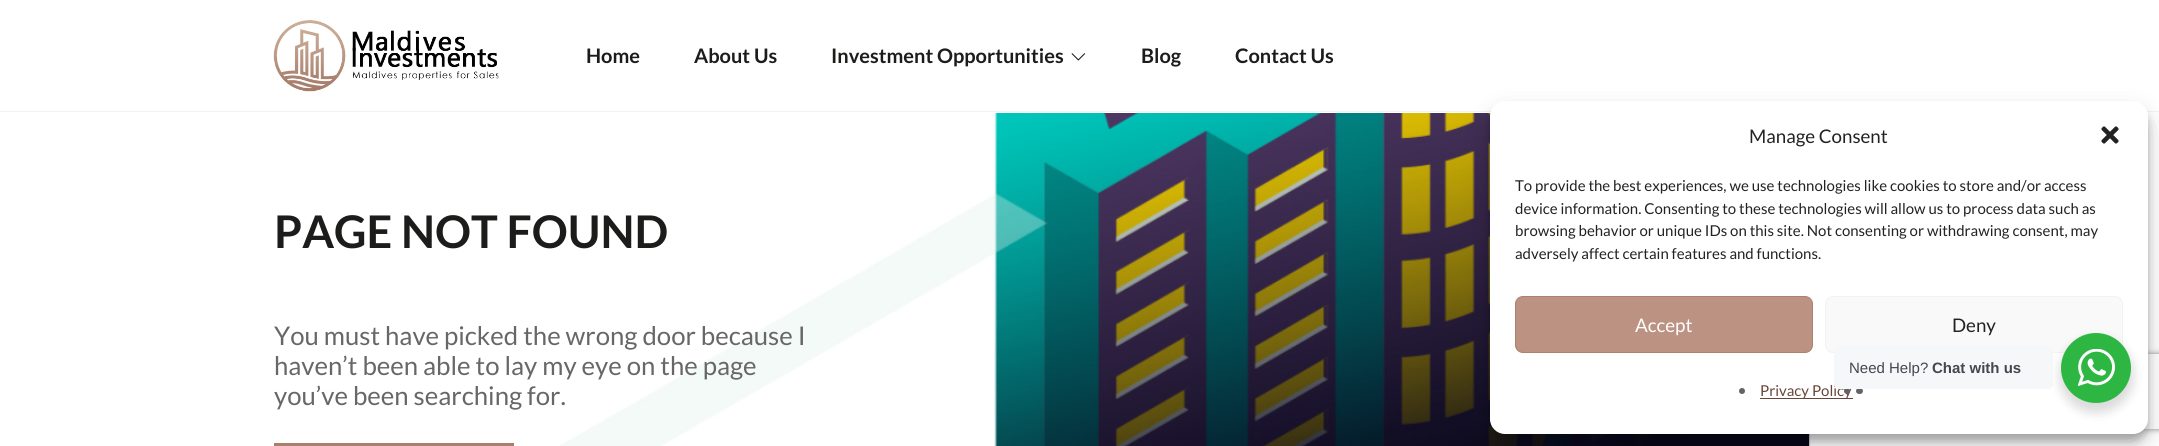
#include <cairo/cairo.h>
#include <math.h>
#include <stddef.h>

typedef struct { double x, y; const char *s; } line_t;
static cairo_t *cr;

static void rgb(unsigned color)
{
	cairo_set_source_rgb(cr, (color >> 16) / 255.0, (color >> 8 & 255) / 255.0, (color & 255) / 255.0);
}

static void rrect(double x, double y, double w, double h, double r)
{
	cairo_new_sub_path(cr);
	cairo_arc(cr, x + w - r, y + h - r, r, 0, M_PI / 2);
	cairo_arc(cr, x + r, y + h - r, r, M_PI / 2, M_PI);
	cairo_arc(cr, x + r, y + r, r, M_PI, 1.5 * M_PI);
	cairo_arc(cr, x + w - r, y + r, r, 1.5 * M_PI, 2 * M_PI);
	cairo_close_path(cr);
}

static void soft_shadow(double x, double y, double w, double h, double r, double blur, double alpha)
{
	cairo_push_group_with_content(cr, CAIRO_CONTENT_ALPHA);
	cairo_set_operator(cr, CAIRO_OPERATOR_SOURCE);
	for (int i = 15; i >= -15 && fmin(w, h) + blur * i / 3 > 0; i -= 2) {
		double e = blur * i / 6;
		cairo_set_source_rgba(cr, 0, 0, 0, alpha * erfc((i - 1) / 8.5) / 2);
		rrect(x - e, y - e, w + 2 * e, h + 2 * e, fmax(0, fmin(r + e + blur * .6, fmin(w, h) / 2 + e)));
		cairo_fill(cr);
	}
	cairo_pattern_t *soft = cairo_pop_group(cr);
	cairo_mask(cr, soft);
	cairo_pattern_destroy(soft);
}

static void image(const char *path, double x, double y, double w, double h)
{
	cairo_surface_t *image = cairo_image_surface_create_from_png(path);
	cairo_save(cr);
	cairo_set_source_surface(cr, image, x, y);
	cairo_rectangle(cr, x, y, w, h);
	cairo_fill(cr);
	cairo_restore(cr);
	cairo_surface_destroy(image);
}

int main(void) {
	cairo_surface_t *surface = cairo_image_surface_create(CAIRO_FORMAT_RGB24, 2159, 446);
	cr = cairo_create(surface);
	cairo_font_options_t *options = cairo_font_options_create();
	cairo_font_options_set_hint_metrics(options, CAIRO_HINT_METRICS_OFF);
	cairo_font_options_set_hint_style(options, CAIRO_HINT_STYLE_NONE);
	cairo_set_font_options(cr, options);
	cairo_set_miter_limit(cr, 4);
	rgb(0xffffff);
	cairo_paint(cr);
	rgb(0xf2f2f2);
	cairo_rectangle(cr, 0, 111, 2159, 1);
	cairo_fill(cr);
	image("img/1.png", 273, 20, 226, 72);
	image("img/2.png", 1071, 53, 15, 8);
	image("img/3.png", 560, 113, 1251, 333);
	rgb(0xaa7f6e);
	cairo_rectangle(cr, 274, 443, 240, 3);
	cairo_fill(cr);
	rgb(0x000000);
	soft_shadow(1490, 109, 658, 332, 15, 4, 0.23);
	soft_shadow(1490, 114, 658, 332, 15, 12.5, 0.19);
	cairo_save(cr);
	cairo_set_fill_rule(cr, CAIRO_FILL_RULE_EVEN_ODD);
	cairo_new_path(cr);
	cairo_move_to(cr, 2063, 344);
	cairo_line_to(cr, 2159, 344);
	cairo_line_to(cr, 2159, 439);
	cairo_line_to(cr, 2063, 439);
	cairo_close_path(cr);
	cairo_move_to(cr, 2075.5, 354);
	cairo_line_to(cr, 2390.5, 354);
	cairo_curve_to(cr, 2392, 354, 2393, 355, 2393, 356.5);
	cairo_line_to(cr, 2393, 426.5);
	cairo_curve_to(cr, 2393, 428, 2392, 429, 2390.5, 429);
	cairo_line_to(cr, 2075.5, 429);
	cairo_curve_to(cr, 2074, 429, 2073, 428, 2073, 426.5);
	cairo_line_to(cr, 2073, 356.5);
	cairo_curve_to(cr, 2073, 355, 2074, 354, 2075.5, 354);
	cairo_close_path(cr);
	cairo_clip(cr);
	rgb(0x808080);
	soft_shadow(2073, 354, 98, 75, 2.5, 3, 1);
	cairo_restore(cr);
	rgb(0xffffff);
	rrect(1490, 101, 658, 333, 15);
	cairo_fill(cr);
	image("img/4.png", 2101, 126, 18, 18);
	rgb(0xbc9282);
	rrect(1515.5, 296.5, 297, 56, 7.5);
	cairo_fill_preserve(cr);
	rgb(0xaa8070);
	cairo_set_line_width(cr, 1);
	cairo_stroke(cr);
	rgb(0xf9f9f9);
	rrect(1825.5, 296.5, 297, 56, 7.5);
	cairo_fill_preserve(cr);
	rgb(0xf2f2f2);
	cairo_stroke(cr);
	rgb(0x636366);
	cairo_arc(cr, 1742, 391, 3, 0, 2 * M_PI);
	cairo_fill(cr);
	rgb(0x67463a);
	cairo_rectangle(cr, 1760, 398, 93, 1);
	cairo_fill(cr);
	rgb(0x636366);
	rrect(1856, 388, 7, 6, 3);
	cairo_fill(cr);
	rgb(0x000000);
	soft_shadow(2059, 338, 75, 75, 37.5, 5, 0.14);
	rgb(0x2db742);
	cairo_arc(cr, 2096, 368, 35, 0, 2 * M_PI);
	cairo_fill(cr);
	image("img/5.png", 2078, 349, 37, 37);
	cairo_select_font_face(cr, "Lato", CAIRO_FONT_SLANT_NORMAL, CAIRO_FONT_WEIGHT_BOLD);
	cairo_set_font_size(cr, 20);
	rgb(0x1c1c1b);
	{
		static const line_t items[] = {
			{586, 63, "Home"},
			{694, 63, "About Us"},
			{831, 63, "Investment Opportunities"},
			{1141, 63, "Blog"},
			{1235, 63, "Contact Us"},
		};
		for (size_t i = 0; i < sizeof items / sizeof *items; i++) {
			cairo_move_to(cr, items[i].x, items[i].y);
			cairo_show_text(cr, items[i].s);
		}
	}
	cairo_set_font_size(cr, 45);
	cairo_move_to(cr, 274, 248);
	cairo_show_text(cr, "PAGE NOT FOUND");
	cairo_select_font_face(cr, "Lato", CAIRO_FONT_SLANT_NORMAL, CAIRO_FONT_WEIGHT_NORMAL);
	cairo_set_font_size(cr, 25.75);
	rgb(0x676767);
	{
		static const line_t items[] = {
			{274, 345, "You must have picked the wrong door because I"},
			{274, 375, "haven’t been able to lay my eye on the page"},
			{274, 405, "you’ve been searching for."},
		};
		for (size_t i = 0; i < sizeof items / sizeof *items; i++) {
			cairo_move_to(cr, items[i].x, items[i].y);
			cairo_show_text(cr, items[i].s);
		}
	}
	cairo_set_font_size(cr, 18.75);
	rgb(0x222222);
	cairo_move_to(cr, 1749, 143);
	cairo_show_text(cr, "Manage Consent");
	cairo_set_font_size(cr, 15);
	{
		static const line_t items[] = {
			{1515, 191, "To provide the best experiences, we use technologies like cookies to store and/or access"},
			{1515, 214, "device information. Consenting to these technologies will allow us to process data such as"},
			{1515, 236, "browsing behavior or unique IDs on this site. Not consenting or withdrawing consent, may"},
			{1515, 259, "adversely affect certain features and functions."},
		};
		for (size_t i = 0; i < sizeof items / sizeof *items; i++) {
			cairo_move_to(cr, items[i].x, items[i].y);
			cairo_show_text(cr, items[i].s);
		}
	}
	cairo_set_font_size(cr, 18.75);
	rgb(0xffffff);
	cairo_move_to(cr, 1635, 332);
	cairo_show_text(cr, "Accept");
	rgb(0x222222);
	cairo_move_to(cr, 1952, 332);
	cairo_show_text(cr, "Deny");
	cairo_set_font_size(cr, 15);
	rgb(0x67463a);
	cairo_move_to(cr, 1760, 396);
	cairo_show_text(cr, "Privacy Policy");
	rgb(0x636366);
	cairo_new_path(cr);
	cairo_arc(cr, 1847, 391, 3, 0, 2 * M_PI);
	cairo_fill(cr);
	rgb(0xf5f7f9);
	rrect(1834, 346, 219, 43, 5);
	cairo_fill(cr);
	cairo_select_font_face(cr, "Liberation Sans", CAIRO_FONT_SLANT_NORMAL, CAIRO_FONT_WEIGHT_NORMAL);
	rgb(0x43474e);
	cairo_move_to(cr, 1849, 373);
	cairo_show_text(cr, "Need Help?");
	cairo_select_font_face(cr, "Liberation Sans", CAIRO_FONT_SLANT_NORMAL, CAIRO_FONT_WEIGHT_BOLD);
	cairo_move_to(cr, 1932, 373);
	cairo_show_text(cr, "Chat with us");
	cairo_surface_write_to_png(surface, "page.png");
	cairo_font_options_destroy(options);
	cairo_destroy(cr);
	cairo_surface_destroy(surface);
	return 0;
}
